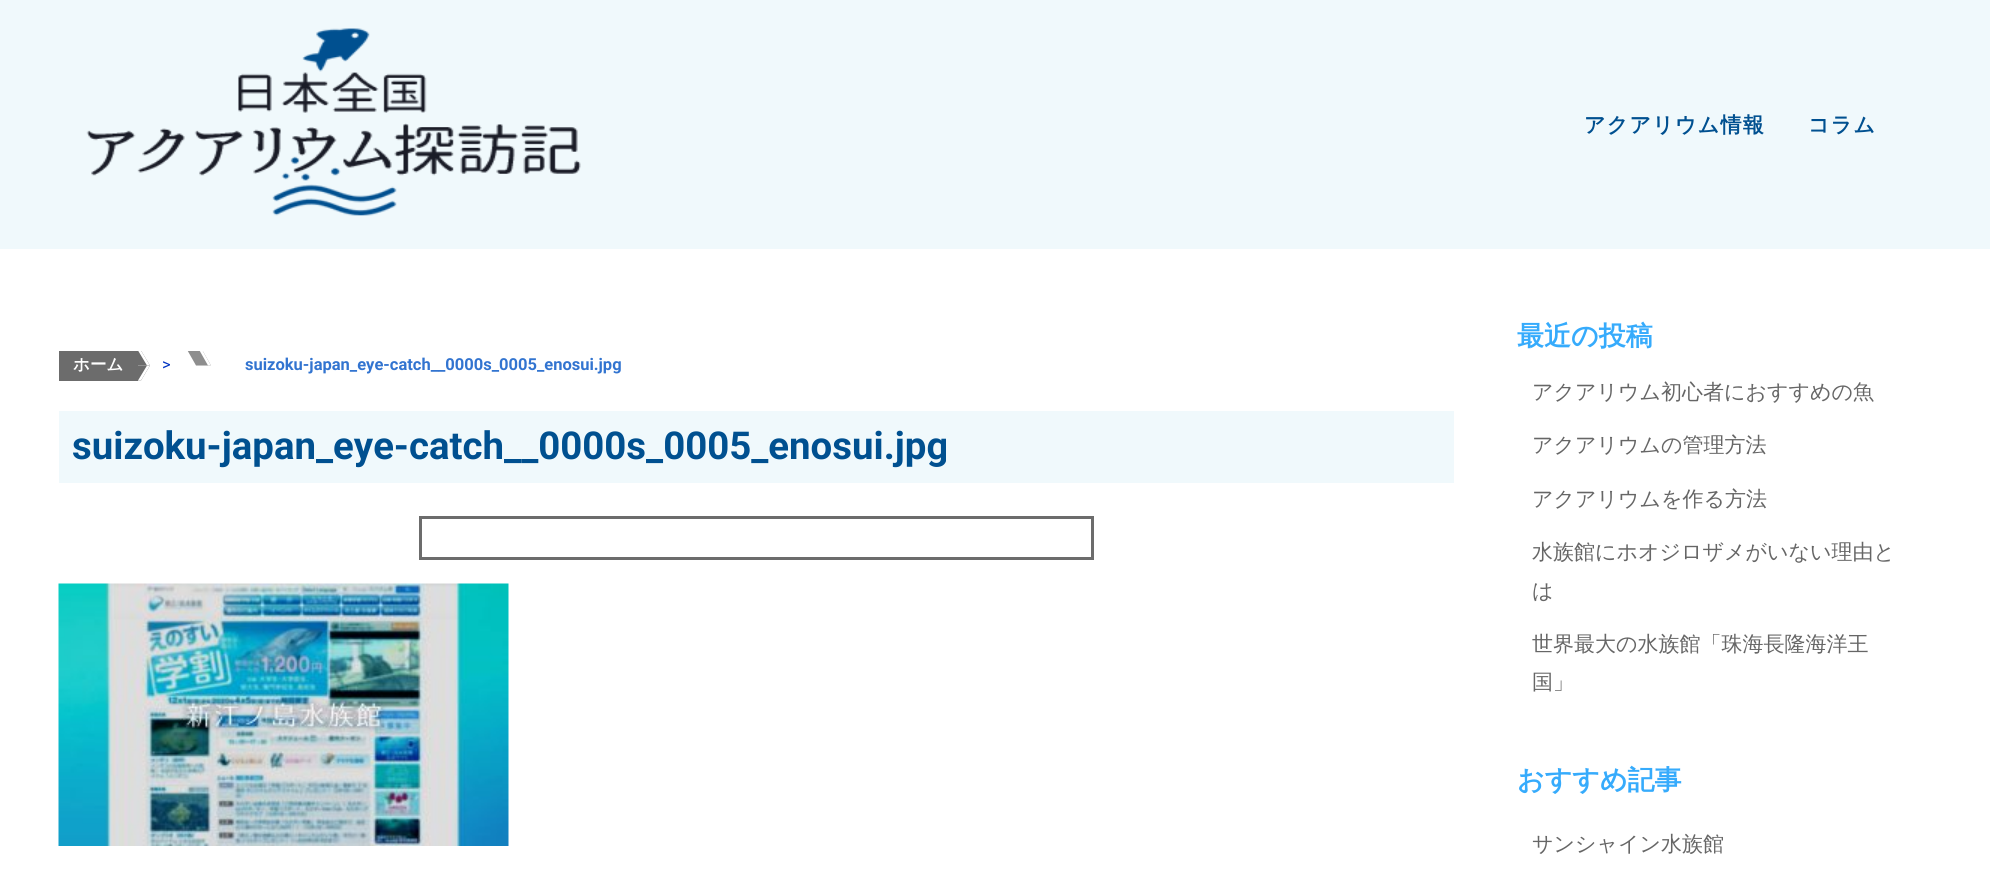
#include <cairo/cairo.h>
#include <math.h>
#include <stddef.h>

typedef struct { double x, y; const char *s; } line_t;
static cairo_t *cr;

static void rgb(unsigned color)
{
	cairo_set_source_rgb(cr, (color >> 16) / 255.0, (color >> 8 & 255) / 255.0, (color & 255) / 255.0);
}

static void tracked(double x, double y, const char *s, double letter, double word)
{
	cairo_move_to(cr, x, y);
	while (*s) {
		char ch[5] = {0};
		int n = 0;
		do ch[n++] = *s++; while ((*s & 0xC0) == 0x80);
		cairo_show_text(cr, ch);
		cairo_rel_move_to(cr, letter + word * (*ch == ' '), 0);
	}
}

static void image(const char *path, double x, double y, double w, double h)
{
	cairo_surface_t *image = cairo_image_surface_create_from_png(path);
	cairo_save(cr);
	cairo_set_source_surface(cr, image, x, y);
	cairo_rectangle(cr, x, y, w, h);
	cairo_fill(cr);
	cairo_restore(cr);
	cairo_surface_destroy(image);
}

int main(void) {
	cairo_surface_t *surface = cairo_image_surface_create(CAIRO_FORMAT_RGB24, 1990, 891);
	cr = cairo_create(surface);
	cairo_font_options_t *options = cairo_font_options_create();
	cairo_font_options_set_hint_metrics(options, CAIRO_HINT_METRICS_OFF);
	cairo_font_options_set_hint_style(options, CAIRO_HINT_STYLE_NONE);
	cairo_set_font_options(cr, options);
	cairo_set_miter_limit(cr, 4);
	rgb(0xffffff);
	cairo_paint(cr);
	rgb(0xf0f9fc);
	cairo_rectangle(cr, 0, 0, 1990, 249);
	cairo_fill(cr);
	image("img/1.png", 86, 28, 495, 188);
	rgb(0x6c6c6c);
	cairo_rectangle(cr, 59, 351, 79, 30);
	cairo_fill(cr);
	cairo_save(cr);
	cairo_rectangle(cr, 59, 351, 1395, 30);
	cairo_clip(cr);
	cairo_new_path(cr);
	cairo_move_to(cr, 126, 350.5);
	cairo_line_to(cr, 141, 350.5);
	cairo_line_to(cr, 150, 365.5);
	cairo_line_to(cr, 135, 365.5);
	cairo_close_path(cr);
	cairo_fill(cr);
	rgb(0xffffff);
	cairo_new_path(cr);
	cairo_move_to(cr, 138, 350.5);
	cairo_line_to(cr, 141, 350.5);
	cairo_line_to(cr, 150, 365.5);
	cairo_line_to(cr, 147, 365.5);
	cairo_close_path(cr);
	cairo_fill(cr);
	cairo_restore(cr);
	cairo_new_path(cr);
	cairo_move_to(cr, 135, 365.5);
	cairo_line_to(cr, 150, 365.5);
	cairo_line_to(cr, 141, 380.5);
	cairo_line_to(cr, 126, 380.5);
	cairo_close_path(cr);
	cairo_fill(cr);
	rgb(0xffffff);
	cairo_new_path(cr);
	cairo_move_to(cr, 147, 365.5);
	cairo_line_to(cr, 150, 365.5);
	cairo_line_to(cr, 141, 380.5);
	cairo_line_to(cr, 138, 380.5);
	cairo_close_path(cr);
	cairo_fill(cr);
	cairo_save(cr);
	cairo_rectangle(cr, 59, 351, 1395, 30);
	cairo_clip(cr);
	rgb(0x8e8e8e);
	cairo_new_path(cr);
	cairo_move_to(cr, 187.5, 350.5);
	cairo_line_to(cr, 202.5, 350.5);
	cairo_line_to(cr, 211, 365.5);
	cairo_line_to(cr, 196, 365.5);
	cairo_close_path(cr);
	cairo_fill(cr);
	rgb(0xffffff);
	cairo_new_path(cr);
	cairo_move_to(cr, 199.5, 350.5);
	cairo_line_to(cr, 202.5, 350.5);
	cairo_line_to(cr, 211, 365.5);
	cairo_line_to(cr, 208, 365.5);
	cairo_close_path(cr);
	cairo_fill(cr);
	cairo_restore(cr);
	rgb(0xf0f9fc);
	cairo_rectangle(cr, 59, 411, 1395, 72);
	cairo_fill(cr);
	cairo_rectangle(cr, 420.5, 517.5, 672, 41);
	rgb(0x6c6c6c);
	cairo_set_line_width(cr, 3);
	cairo_stroke(cr);
	image("img/2.png", 58, 583, 451, 263);
	cairo_select_font_face(cr, "WenQuanYi Zen Hei", CAIRO_FONT_SLANT_NORMAL, CAIRO_FONT_WEIGHT_BOLD);
	cairo_set_font_size(cr, 21);
	rgb(0x005090);
	tracked(1584, 132, "アクアリウム情報", 1.25, 0);
	tracked(1808, 132, "コラム", 1.25, 0);
	cairo_set_font_size(cr, 16.5);
	rgb(0xffffff);
	cairo_move_to(cr, 73, 370);
	cairo_show_text(cr, "ホーム");
	cairo_select_font_face(cr, "Roboto", CAIRO_FONT_SLANT_NORMAL, CAIRO_FONT_WEIGHT_NORMAL);
	rgb(0x0032c1);
	cairo_move_to(cr, 162, 370);
	cairo_show_text(cr, ">");
	cairo_select_font_face(cr, "Roboto", CAIRO_FONT_SLANT_NORMAL, CAIRO_FONT_WEIGHT_BOLD);
	rgb(0x3274d0);
	cairo_move_to(cr, 245, 370);
	cairo_show_text(cr, "suizoku-japan_eye-catch__0000s_0005_enosui.jpg");
	cairo_set_font_size(cr, 38.4);
	rgb(0x005090);
	cairo_move_to(cr, 72, 459);
	cairo_show_text(cr, "suizoku-japan_eye-catch__0000s_0005_enosui.jpg");
	cairo_select_font_face(cr, "WenQuanYi Zen Hei", CAIRO_FONT_SLANT_NORMAL, CAIRO_FONT_WEIGHT_BOLD);
	cairo_set_font_size(cr, 27);
	rgb(0x36abfc);
	cairo_move_to(cr, 1517, 345);
	cairo_show_text(cr, "最近の投稿");
	cairo_select_font_face(cr, "WenQuanYi Zen Hei Medium", CAIRO_FONT_SLANT_NORMAL, CAIRO_FONT_WEIGHT_NORMAL);
	cairo_set_font_size(cr, 21);
	rgb(0x666666);
	{
		static const line_t items[] = {
			{1532, 399, "アクアリウム初心者におすすめの魚"},
			{1532, 452, "アクアリウムの管理方法"},
			{1532, 506, "アクアリウムを作る方法"},
			{1532, 559, "水族館にホオジロザメがいない理由と"},
			{1532, 598, "は"},
			{1532, 651, "世界最大の水族館「珠海長隆海洋王"},
			{1532, 689, "国」"},
		};
		for (size_t i = 0; i < sizeof items / sizeof *items; i++) {
			cairo_move_to(cr, items[i].x, items[i].y);
			cairo_show_text(cr, items[i].s);
		}
	}
	cairo_select_font_face(cr, "WenQuanYi Zen Hei", CAIRO_FONT_SLANT_NORMAL, CAIRO_FONT_WEIGHT_BOLD);
	cairo_set_font_size(cr, 27);
	rgb(0x36abfc);
	cairo_move_to(cr, 1517, 789);
	cairo_show_text(cr, "おすすめ記事");
	cairo_select_font_face(cr, "WenQuanYi Zen Hei Medium", CAIRO_FONT_SLANT_NORMAL, CAIRO_FONT_WEIGHT_NORMAL);
	cairo_set_font_size(cr, 21);
	rgb(0x666666);
	cairo_move_to(cr, 1532, 851);
	cairo_show_text(cr, "サンシャイン水族館");
	cairo_surface_write_to_png(surface, "page.png");
	cairo_font_options_destroy(options);
	cairo_destroy(cr);
	cairo_surface_destroy(surface);
	return 0;
}
